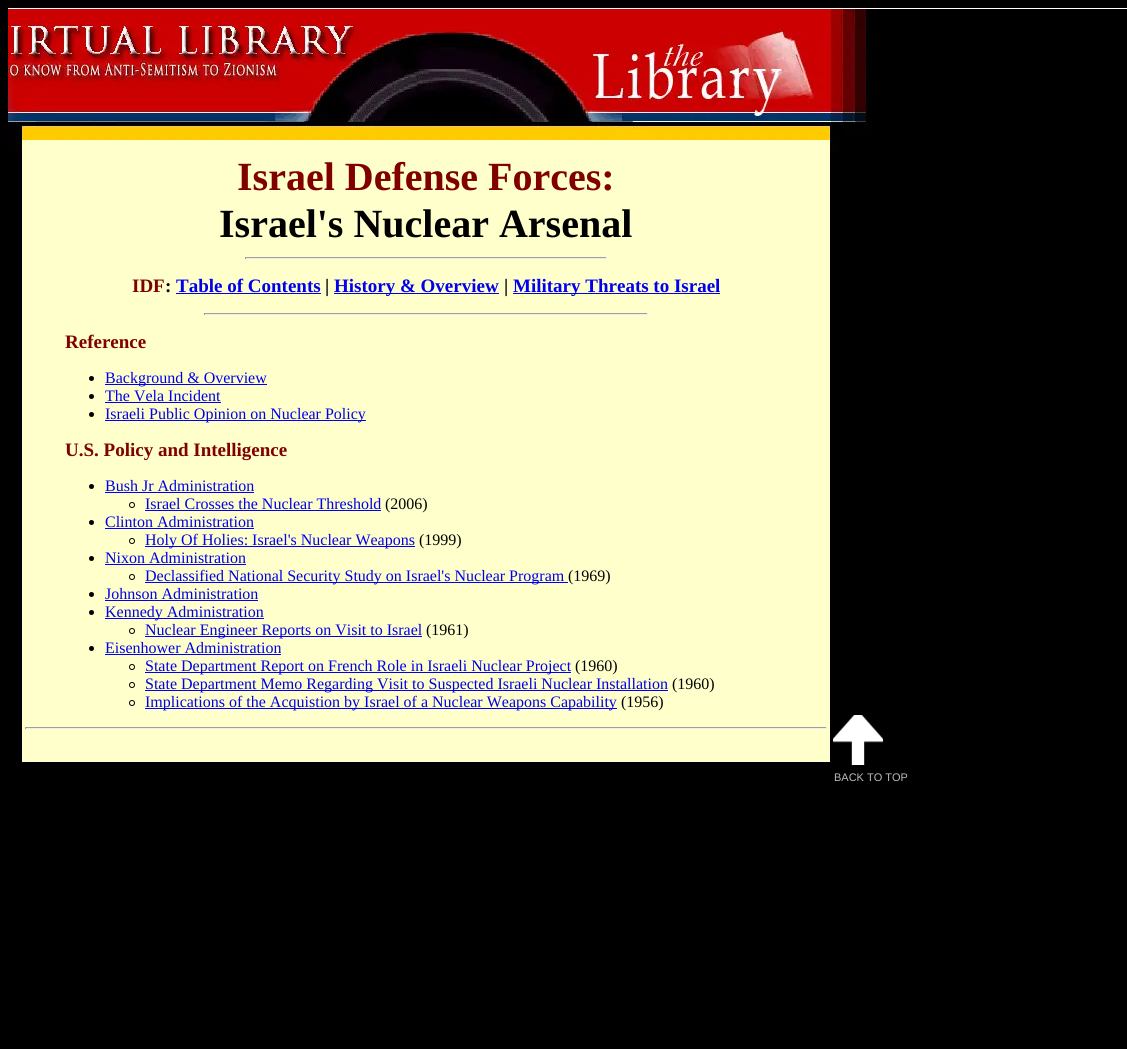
#include <cairo/cairo.h>
#include <math.h>
#include <stddef.h>

typedef struct { double x, y; const char *s; } line_t;
typedef struct { double x, y, w, h; unsigned color; } box_t;
static cairo_t *cr;

static void rgb(unsigned color)
{
	cairo_set_source_rgb(cr, (color >> 16) / 255.0, (color >> 8 & 255) / 255.0, (color & 255) / 255.0);
}

static void image(const char *path, double x, double y, double w, double h)
{
	cairo_surface_t *image = cairo_image_surface_create_from_png(path);
	cairo_save(cr);
	cairo_set_source_surface(cr, image, x, y);
	cairo_rectangle(cr, x, y, w, h);
	cairo_fill(cr);
	cairo_restore(cr);
	cairo_surface_destroy(image);
}

int main(void) {
	cairo_surface_t *surface = cairo_image_surface_create(CAIRO_FORMAT_RGB24, 1127, 1049);
	cr = cairo_create(surface);
	cairo_font_options_t *options = cairo_font_options_create();
	cairo_font_options_set_hint_metrics(options, CAIRO_HINT_METRICS_OFF);
	cairo_font_options_set_hint_style(options, CAIRO_HINT_STYLE_NONE);
	cairo_set_font_options(cr, options);
	cairo_set_miter_limit(cr, 4);
	rgb(0x000000);
	cairo_paint(cr);
	rgb(0xffffff);
	cairo_rectangle(cr, 8, 8, 1119, 1);
	cairo_fill(cr);
	image("img/1.png", 8, 9, 864, 144);
	{
		static const box_t items[] = {
			{22, 140, 808, 622, 0xffffcc},
			{245, 257, 362, 1, 0x9f9f9f},
			{606, 257, 1, 2, 0xeeeeee},
			{245, 258, 362, 1, 0xeeeeee},
			{245, 257, 1, 2, 0x9f9f9f},
			{176, 293, 145, 1, 0x0000ee},
			{334, 293, 165, 1, 0x0000ee},
			{513, 293, 207, 1, 0x0000ee},
			{204, 313, 444, 1, 0x9f9f9f},
			{647, 313, 1, 2, 0xeeeeee},
			{204, 314, 444, 1, 0xeeeeee},
			{204, 313, 1, 2, 0x9f9f9f},
		};
		for (size_t i = 0; i < sizeof items / sizeof *items; i++) {
			rgb(items[i].color);
			cairo_rectangle(cr, items[i].x, items[i].y, items[i].w, items[i].h);
			cairo_fill(cr);
		}
	}
	rgb(0x000000);
	cairo_arc(cr, 91.5, 378.5, 2.5, 0, 2 * M_PI);
	cairo_fill(cr);
	rgb(0x0000ee);
	cairo_rectangle(cr, 105, 384, 162, 1);
	cairo_fill(cr);
	rgb(0x000000);
	cairo_arc(cr, 91.5, 396.5, 2.5, 0, 2 * M_PI);
	cairo_fill(cr);
	rgb(0x0000ee);
	cairo_rectangle(cr, 105, 402, 116, 1);
	cairo_fill(cr);
	rgb(0x000000);
	cairo_arc(cr, 91.5, 414.5, 2.5, 0, 2 * M_PI);
	cairo_fill(cr);
	rgb(0x0000ee);
	cairo_rectangle(cr, 105, 420, 261, 1);
	cairo_fill(cr);
	rgb(0x000000);
	cairo_arc(cr, 91.5, 486.5, 2.5, 0, 2 * M_PI);
	cairo_fill(cr);
	rgb(0x0000ee);
	cairo_rectangle(cr, 105, 492, 149, 1);
	cairo_fill(cr);
	cairo_arc(cr, 132, 505, 2.5, 0, 2 * M_PI);
	rgb(0x000000);
	cairo_set_line_width(cr, 1);
	cairo_stroke(cr);
	rgb(0x0000ee);
	cairo_rectangle(cr, 145, 510, 236, 1);
	cairo_fill(cr);
	rgb(0x000000);
	cairo_arc(cr, 91.5, 522.5, 2.5, 0, 2 * M_PI);
	cairo_fill(cr);
	rgb(0x0000ee);
	cairo_rectangle(cr, 105, 528, 149, 1);
	cairo_fill(cr);
	cairo_arc(cr, 132, 541, 2.5, 0, 2 * M_PI);
	rgb(0x000000);
	cairo_stroke(cr);
	rgb(0x0000ee);
	cairo_rectangle(cr, 145, 546, 270, 1);
	cairo_fill(cr);
	rgb(0x000000);
	cairo_arc(cr, 91.5, 558.5, 2.5, 0, 2 * M_PI);
	cairo_fill(cr);
	rgb(0x0000ee);
	cairo_rectangle(cr, 105, 564, 141, 1);
	cairo_fill(cr);
	cairo_arc(cr, 132, 577, 2.5, 0, 2 * M_PI);
	rgb(0x000000);
	cairo_stroke(cr);
	rgb(0x0000ee);
	cairo_rectangle(cr, 145, 582, 423, 1);
	cairo_fill(cr);
	rgb(0x000000);
	cairo_arc(cr, 91.5, 594.5, 2.5, 0, 2 * M_PI);
	cairo_fill(cr);
	rgb(0x0000ee);
	cairo_rectangle(cr, 105, 600, 153, 1);
	cairo_fill(cr);
	rgb(0x000000);
	cairo_arc(cr, 91.5, 612.5, 2.5, 0, 2 * M_PI);
	cairo_fill(cr);
	rgb(0x0000ee);
	cairo_rectangle(cr, 105, 618, 159, 1);
	cairo_fill(cr);
	cairo_arc(cr, 132, 631, 2.5, 0, 2 * M_PI);
	rgb(0x000000);
	cairo_stroke(cr);
	rgb(0x0000ee);
	cairo_rectangle(cr, 145, 636, 277, 1);
	cairo_fill(cr);
	rgb(0x000000);
	cairo_arc(cr, 91.5, 648.5, 2.5, 0, 2 * M_PI);
	cairo_fill(cr);
	rgb(0x0000ee);
	cairo_rectangle(cr, 105, 654, 176, 1);
	cairo_fill(cr);
	cairo_arc(cr, 132, 667, 2.5, 0, 2 * M_PI);
	rgb(0x000000);
	cairo_stroke(cr);
	rgb(0x0000ee);
	cairo_rectangle(cr, 145, 672, 426, 1);
	cairo_fill(cr);
	cairo_arc(cr, 132, 685, 2.5, 0, 2 * M_PI);
	rgb(0x000000);
	cairo_stroke(cr);
	rgb(0x0000ee);
	cairo_rectangle(cr, 145, 690, 523, 1);
	cairo_fill(cr);
	cairo_arc(cr, 132, 703, 2.5, 0, 2 * M_PI);
	rgb(0x000000);
	cairo_stroke(cr);
	{
		static const box_t items[] = {
			{145, 708, 472, 1, 0x0000ee},
			{25, 727, 802, 1, 0x9f9f9f},
			{826, 727, 1, 2, 0xeeeeee},
			{25, 728, 802, 1, 0xeeeeee},
			{25, 727, 1, 2, 0x9f9f9f},
		};
		for (size_t i = 0; i < sizeof items / sizeof *items; i++) {
			rgb(items[i].color);
			cairo_rectangle(cr, items[i].x, items[i].y, items[i].w, items[i].h);
			cairo_fill(cr);
		}
	}
	image("img/2.png", 833, 715, 50, 50);
	cairo_select_font_face(cr, "Liberation Serif", CAIRO_FONT_SLANT_NORMAL, CAIRO_FONT_WEIGHT_BOLD);
	cairo_set_font_size(cr, 40);
	rgb(0x800000);
	cairo_move_to(cr, 237, 190);
	cairo_show_text(cr, "Israel Defense Forces:");
	rgb(0x000000);
	cairo_move_to(cr, 219, 237);
	cairo_show_text(cr, "Israel's Nuclear Arsenal");
	cairo_set_font_size(cr, 19);
	rgb(0x800000);
	cairo_move_to(cr, 132, 292);
	cairo_show_text(cr, "IDF");
	rgb(0x000000);
	cairo_move_to(cr, 165, 292);
	cairo_show_text(cr, ":");
	rgb(0x0000ee);
	cairo_move_to(cr, 176, 292);
	cairo_show_text(cr, "Table of Contents");
	rgb(0x000000);
	cairo_move_to(cr, 325, 292);
	cairo_show_text(cr, "|");
	rgb(0x0000ee);
	cairo_move_to(cr, 334, 292);
	cairo_show_text(cr, "History & Overview");
	rgb(0x000000);
	cairo_move_to(cr, 504, 292);
	cairo_show_text(cr, "|");
	rgb(0x0000ee);
	cairo_move_to(cr, 513, 292);
	cairo_show_text(cr, "Military Threats to Israel");
	rgb(0x800000);
	cairo_move_to(cr, 65, 348);
	cairo_show_text(cr, "Reference");
	cairo_select_font_face(cr, "Liberation Serif", CAIRO_FONT_SLANT_NORMAL, CAIRO_FONT_WEIGHT_NORMAL);
	cairo_set_font_size(cr, 16);
	rgb(0x0000ee);
	{
		static const line_t items[] = {
			{105, 383, "Background & Overview"},
			{105, 401, "The Vela Incident"},
			{105, 419, "Israeli Public Opinion on Nuclear Policy"},
		};
		for (size_t i = 0; i < sizeof items / sizeof *items; i++) {
			cairo_move_to(cr, items[i].x, items[i].y);
			cairo_show_text(cr, items[i].s);
		}
	}
	cairo_select_font_face(cr, "Liberation Serif", CAIRO_FONT_SLANT_NORMAL, CAIRO_FONT_WEIGHT_BOLD);
	cairo_set_font_size(cr, 19);
	rgb(0x800000);
	cairo_move_to(cr, 65, 456);
	cairo_show_text(cr, "U.S. Policy and Intelligence");
	cairo_select_font_face(cr, "Liberation Serif", CAIRO_FONT_SLANT_NORMAL, CAIRO_FONT_WEIGHT_NORMAL);
	cairo_set_font_size(cr, 16);
	rgb(0x0000ee);
	cairo_move_to(cr, 105, 491);
	cairo_show_text(cr, "Bush Jr Administration");
	cairo_move_to(cr, 145, 509);
	cairo_show_text(cr, "Israel Crosses the Nuclear Threshold");
	rgb(0x000000);
	cairo_move_to(cr, 385, 509);
	cairo_show_text(cr, "(2006)");
	rgb(0x0000ee);
	cairo_move_to(cr, 105, 527);
	cairo_show_text(cr, "Clinton Administration");
	cairo_move_to(cr, 145, 545);
	cairo_show_text(cr, "Holy Of Holies: Israel's Nuclear Weapons");
	rgb(0x000000);
	cairo_move_to(cr, 419, 545);
	cairo_show_text(cr, "(1999)");
	rgb(0x0000ee);
	cairo_move_to(cr, 105, 563);
	cairo_show_text(cr, "Nixon Administration");
	cairo_move_to(cr, 145, 581);
	cairo_show_text(cr, "Declassified National Security Study on Israel's Nuclear Program");
	rgb(0x000000);
	cairo_move_to(cr, 568, 581);
	cairo_show_text(cr, "(1969)");
	rgb(0x0000ee);
	{
		static const line_t items[] = {
			{105, 599, "Johnson Administration"},
			{105, 617, "Kennedy Administration"},
			{145, 635, "Nuclear Engineer Reports on Visit to Israel"},
		};
		for (size_t i = 0; i < sizeof items / sizeof *items; i++) {
			cairo_move_to(cr, items[i].x, items[i].y);
			cairo_show_text(cr, items[i].s);
		}
	}
	rgb(0x000000);
	cairo_move_to(cr, 426, 635);
	cairo_show_text(cr, "(1961)");
	rgb(0x0000ee);
	cairo_move_to(cr, 105, 653);
	cairo_show_text(cr, "Eisenhower Administration");
	cairo_move_to(cr, 145, 671);
	cairo_show_text(cr, "State Department Report on French Role in Israeli Nuclear Project");
	rgb(0x000000);
	cairo_move_to(cr, 575, 671);
	cairo_show_text(cr, "(1960)");
	rgb(0x0000ee);
	cairo_move_to(cr, 145, 689);
	cairo_show_text(cr, "State Department Memo Regarding Visit to Suspected Israeli Nuclear Installation");
	rgb(0x000000);
	cairo_move_to(cr, 672, 689);
	cairo_show_text(cr, "(1960)");
	rgb(0x0000ee);
	cairo_move_to(cr, 145, 707);
	cairo_show_text(cr, "Implications of the Acquistion by Israel of a Nuclear Weapons Capability");
	rgb(0x000000);
	cairo_move_to(cr, 621, 707);
	cairo_show_text(cr, "(1956)");
	cairo_select_font_face(cr, "Liberation Sans", CAIRO_FONT_SLANT_NORMAL, CAIRO_FONT_WEIGHT_NORMAL);
	cairo_set_font_size(cr, 11);
	rgb(0xbbbbbb);
	cairo_move_to(cr, 834, 781);
	cairo_show_text(cr, "BACK TO TOP");
	cairo_surface_write_to_png(surface, "page.png");
	cairo_font_options_destroy(options);
	cairo_destroy(cr);
	cairo_surface_destroy(surface);
	return 0;
}
